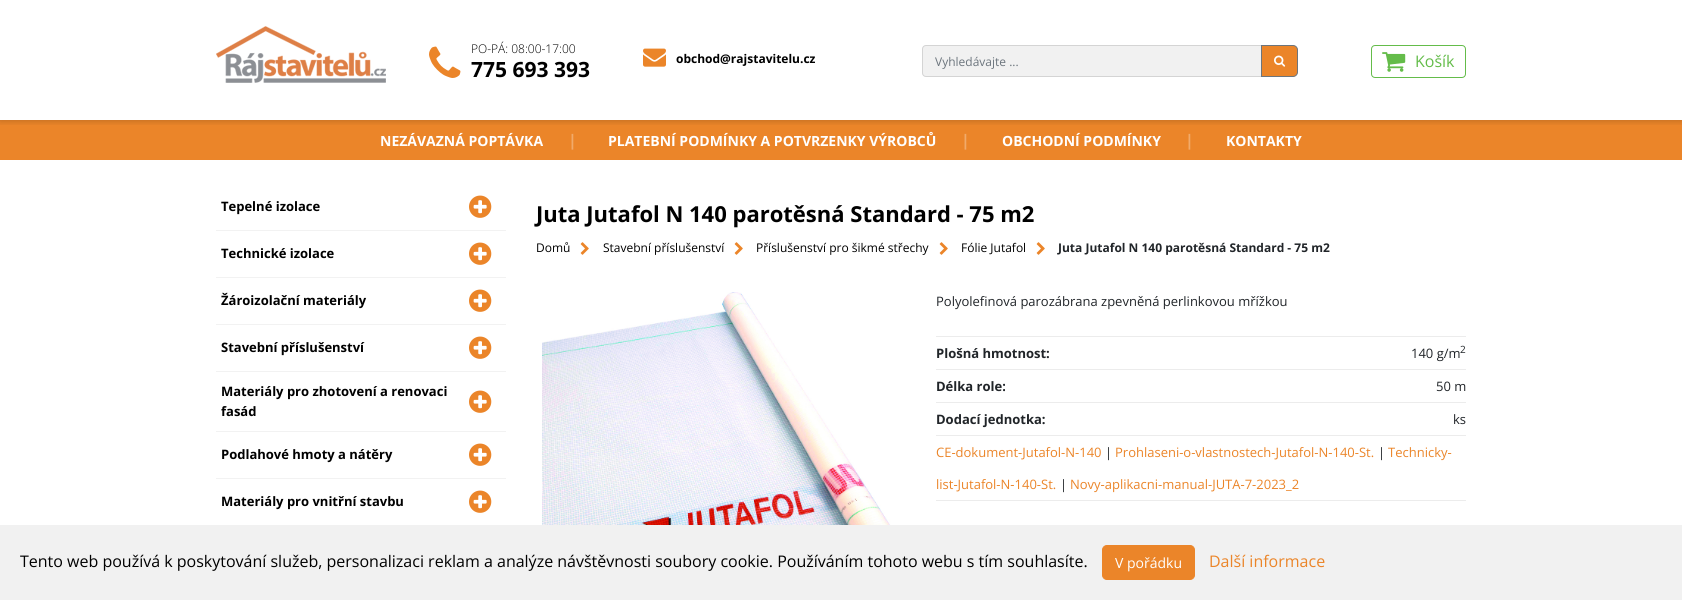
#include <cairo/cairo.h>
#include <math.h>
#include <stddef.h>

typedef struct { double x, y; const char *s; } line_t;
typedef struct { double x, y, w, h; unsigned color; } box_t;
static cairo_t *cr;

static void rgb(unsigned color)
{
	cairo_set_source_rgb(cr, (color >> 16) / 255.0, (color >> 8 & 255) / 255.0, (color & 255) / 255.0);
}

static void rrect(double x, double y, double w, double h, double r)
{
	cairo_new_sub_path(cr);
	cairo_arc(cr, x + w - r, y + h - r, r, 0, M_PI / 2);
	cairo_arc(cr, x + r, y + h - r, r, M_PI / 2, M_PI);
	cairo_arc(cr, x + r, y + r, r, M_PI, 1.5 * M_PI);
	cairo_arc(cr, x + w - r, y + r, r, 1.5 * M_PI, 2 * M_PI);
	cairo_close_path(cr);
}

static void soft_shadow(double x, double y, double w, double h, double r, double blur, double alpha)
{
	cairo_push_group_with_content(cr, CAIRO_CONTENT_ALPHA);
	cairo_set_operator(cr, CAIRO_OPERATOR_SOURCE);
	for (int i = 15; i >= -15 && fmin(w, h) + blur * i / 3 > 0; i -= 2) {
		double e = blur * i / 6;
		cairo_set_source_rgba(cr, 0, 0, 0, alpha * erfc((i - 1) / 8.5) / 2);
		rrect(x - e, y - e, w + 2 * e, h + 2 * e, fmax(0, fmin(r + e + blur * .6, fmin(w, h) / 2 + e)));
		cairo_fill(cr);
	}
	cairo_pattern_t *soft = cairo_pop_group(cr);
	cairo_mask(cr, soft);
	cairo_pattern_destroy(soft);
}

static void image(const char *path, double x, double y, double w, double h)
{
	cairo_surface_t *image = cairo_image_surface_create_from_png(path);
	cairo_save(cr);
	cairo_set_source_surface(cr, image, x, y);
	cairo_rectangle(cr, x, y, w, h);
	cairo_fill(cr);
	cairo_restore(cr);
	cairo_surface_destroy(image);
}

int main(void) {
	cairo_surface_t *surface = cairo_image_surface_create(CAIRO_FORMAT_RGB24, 1682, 600);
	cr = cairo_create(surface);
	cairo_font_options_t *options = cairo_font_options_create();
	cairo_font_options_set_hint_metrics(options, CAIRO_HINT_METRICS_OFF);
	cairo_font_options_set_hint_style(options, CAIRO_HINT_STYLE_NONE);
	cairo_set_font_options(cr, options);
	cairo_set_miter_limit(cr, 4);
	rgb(0xffffff);
	cairo_paint(cr);
	rgb(0xeb8529);
	cairo_rectangle(cr, 0, 120, 1682, 40);
	cairo_fill(cr);
	cairo_save(cr);
	cairo_rectangle(cr, 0, 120, 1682, 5);
	cairo_clip(cr);
	rgb(0x050505);
	soft_shadow(0, 1, 1682, 120, 0, 3.5, 0.2);
	cairo_restore(cr);
	image("img/1.png", 216, 26, 170, 57);
	image("img/2.png", 429, 46, 32, 32);
	image("img/3.png", 643, 48, 23, 19);
	rgb(0xf1f1f1);
	cairo_new_path(cr);
	cairo_move_to(cr, 926, 45.5);
	cairo_line_to(cr, 1261.5, 45.5);
	cairo_line_to(cr, 1261.5, 76.5);
	cairo_line_to(cr, 926, 76.5);
	cairo_curve_to(cr, 924, 76.5, 922.5, 75, 922.5, 73);
	cairo_line_to(cr, 922.5, 49);
	cairo_curve_to(cr, 922.5, 47, 924, 45.5, 926, 45.5);
	cairo_close_path(cr);
	cairo_fill_preserve(cr);
	rgb(0xd4d4d4);
	cairo_set_line_width(cr, 1);
	cairo_stroke(cr);
	rgb(0xeb8529);
	cairo_new_path(cr);
	cairo_move_to(cr, 1261.5, 45.5);
	cairo_line_to(cr, 1293, 45.5);
	cairo_curve_to(cr, 1295.5, 45.5, 1297.5, 47.5, 1297.5, 50);
	cairo_line_to(cr, 1297.5, 72);
	cairo_curve_to(cr, 1297.5, 74.5, 1295.5, 76.5, 1293, 76.5);
	cairo_line_to(cr, 1261.5, 76.5);
	cairo_close_path(cr);
	cairo_fill_preserve(cr);
	rgb(0x6c757d);
	cairo_stroke(cr);
	image("img/4.png", 1274, 55, 12, 12);
	rrect(1371.5, 45.5, 94, 32, 3.5);
	rgb(0x64bc4a);
	cairo_stroke(cr);
	image("img/5.png", 1382, 52, 24, 20);
	rgb(0xf2f2f2);
	cairo_rectangle(cr, 216, 230, 290, 1);
	cairo_fill(cr);
	image("img/6.png", 469, 195, 23, 23);
	cairo_rectangle(cr, 216, 277, 290, 1);
	cairo_fill(cr);
	image("img/6.png", 469, 242, 23, 23);
	cairo_rectangle(cr, 216, 324, 290, 1);
	cairo_fill(cr);
	image("img/6.png", 469, 289, 23, 23);
	cairo_rectangle(cr, 216, 371, 290, 1);
	cairo_fill(cr);
	image("img/6.png", 469, 336, 23, 23);
	cairo_rectangle(cr, 216, 431, 290, 1);
	cairo_fill(cr);
	image("img/6.png", 469, 390, 23, 23);
	cairo_rectangle(cr, 216, 478, 290, 1);
	cairo_fill(cr);
	image("img/6.png", 469, 443, 23, 23);
	image("img/6.png", 469, 490, 23, 23);
	image("img/7.png", 580, 242, 9, 13);
	image("img/7.png", 734, 242, 9, 13);
	image("img/7.png", 939, 242, 9, 13);
	image("img/7.png", 1036, 242, 9, 13);
	image("img/8.png", 542, 292, 358, 233);
	{
		static const box_t items[] = {
			{936, 336, 530, 1, 0xececec},
			{936, 369, 530, 1, 0xececec},
			{936, 402, 530, 1, 0xececec},
			{936, 435, 530, 1, 0xececec},
			{936, 500, 530, 1, 0xececec},
			{0, 525, 1682, 75, 0xf1f1f1},
		};
		for (size_t i = 0; i < sizeof items / sizeof *items; i++) {
			rgb(items[i].color);
			cairo_rectangle(cr, items[i].x, items[i].y, items[i].w, items[i].h);
			cairo_fill(cr);
		}
	}
	rgb(0xeb8529);
	rrect(1102.5, 545.5, 92, 34, 4.5);
	cairo_fill_preserve(cr);
	cairo_stroke(cr);
	cairo_select_font_face(cr, "Open Sans Light", CAIRO_FONT_SLANT_NORMAL, CAIRO_FONT_WEIGHT_NORMAL);
	cairo_set_font_size(cr, 12);
	rgb(0x000000);
	cairo_move_to(cr, 471, 53);
	cairo_show_text(cr, "PO-PÁ: 08:00-17:00");
	cairo_select_font_face(cr, "Open Sans", CAIRO_FONT_SLANT_NORMAL, CAIRO_FONT_WEIGHT_BOLD);
	cairo_set_font_size(cr, 21);
	cairo_move_to(cr, 471, 77);
	cairo_show_text(cr, "775 693 393");
	cairo_set_font_size(cr, 12);
	cairo_move_to(cr, 676, 63);
	cairo_show_text(cr, "obchod@rajstavitelu.cz");
	cairo_select_font_face(cr, "Open Sans", CAIRO_FONT_SLANT_NORMAL, CAIRO_FONT_WEIGHT_NORMAL);
	rgb(0x6c757d);
	cairo_move_to(cr, 935, 66);
	cairo_show_text(cr, "Vyhledávajte ...");
	cairo_set_font_size(cr, 16);
	rgb(0x64bc4a);
	cairo_move_to(cr, 1415, 67);
	cairo_show_text(cr, "Košík");
	cairo_select_font_face(cr, "Open Sans", CAIRO_FONT_SLANT_NORMAL, CAIRO_FONT_WEIGHT_BOLD);
	cairo_set_font_size(cr, 14);
	rgb(0xffffff);
	cairo_move_to(cr, 380, 146);
	cairo_show_text(cr, "NEZÁVAZNÁ POPTÁVKA");
	cairo_set_font_size(cr, 16);
	rgb(0xf1aa6a);
	cairo_move_to(cr, 568, 146);
	cairo_show_text(cr, "|");
	cairo_set_font_size(cr, 14);
	rgb(0xffffff);
	cairo_move_to(cr, 608, 146);
	cairo_show_text(cr, "PLATEBNÍ PODMÍNKY A POTVRZENKY VÝROBCŮ");
	cairo_set_font_size(cr, 16);
	rgb(0xf1aa6a);
	cairo_move_to(cr, 961, 146);
	cairo_show_text(cr, "|");
	cairo_set_font_size(cr, 14);
	rgb(0xffffff);
	cairo_move_to(cr, 1002, 146);
	cairo_show_text(cr, "OBCHODNÍ PODMÍNKY");
	cairo_set_font_size(cr, 16);
	rgb(0xf1aa6a);
	cairo_move_to(cr, 1185, 146);
	cairo_show_text(cr, "|");
	cairo_set_font_size(cr, 14);
	rgb(0xffffff);
	cairo_move_to(cr, 1226, 146);
	cairo_show_text(cr, "KONTAKTY");
	cairo_set_font_size(cr, 13);
	rgb(0x000000);
	{
		static const line_t items[] = {
			{221, 211, "Tepelné izolace"},
			{221, 258, "Technické izolace"},
			{221, 305, "Žároizolační materiály"},
			{221, 352, "Stavební příslušenství"},
			{221, 396, "Materiály pro zhotovení a renovaci"},
			{221, 416, "fasád"},
			{221, 459, "Podlahové hmoty a nátěry"},
			{221, 506, "Materiály pro vnitřní stavbu"},
		};
		for (size_t i = 0; i < sizeof items / sizeof *items; i++) {
			cairo_move_to(cr, items[i].x, items[i].y);
			cairo_show_text(cr, items[i].s);
		}
	}
	cairo_set_font_size(cr, 22);
	cairo_move_to(cr, 536, 222);
	cairo_show_text(cr, "Juta Jutafol N 140 parotěsná Standard - 75 m2");
	cairo_select_font_face(cr, "Open Sans", CAIRO_FONT_SLANT_NORMAL, CAIRO_FONT_WEIGHT_NORMAL);
	cairo_set_font_size(cr, 12);
	{
		static const line_t items[] = {
			{536, 252, "Domů"},
			{603, 252, "Stavební příslušenství"},
			{756, 252, "Příslušenství pro šikmé střechy"},
			{961, 252, "Fólie Jutafol"},
		};
		for (size_t i = 0; i < sizeof items / sizeof *items; i++) {
			cairo_move_to(cr, items[i].x, items[i].y);
			cairo_show_text(cr, items[i].s);
		}
	}
	cairo_select_font_face(cr, "Open Sans", CAIRO_FONT_SLANT_NORMAL, CAIRO_FONT_WEIGHT_BOLD);
	rgb(0x212529);
	cairo_move_to(cr, 1058, 252);
	cairo_show_text(cr, "Juta Jutafol N 140 parotěsná Standard - 75 m2");
	cairo_select_font_face(cr, "Open Sans", CAIRO_FONT_SLANT_NORMAL, CAIRO_FONT_WEIGHT_NORMAL);
	cairo_set_font_size(cr, 13);
	cairo_move_to(cr, 936, 306);
	cairo_show_text(cr, "Polyolefinová parozábrana zpevněná perlinkovou mřížkou");
	cairo_select_font_face(cr, "Open Sans", CAIRO_FONT_SLANT_NORMAL, CAIRO_FONT_WEIGHT_BOLD);
	cairo_move_to(cr, 936, 358);
	cairo_show_text(cr, "Plošná hmotnost:");
	cairo_select_font_face(cr, "Open Sans", CAIRO_FONT_SLANT_NORMAL, CAIRO_FONT_WEIGHT_NORMAL);
	cairo_move_to(cr, 1411, 358);
	cairo_show_text(cr, "140 g/m");
	cairo_set_font_size(cr, 10);
	cairo_move_to(cr, 1460, 353);
	cairo_show_text(cr, "2");
	cairo_select_font_face(cr, "Open Sans", CAIRO_FONT_SLANT_NORMAL, CAIRO_FONT_WEIGHT_BOLD);
	cairo_set_font_size(cr, 13);
	cairo_move_to(cr, 936, 391);
	cairo_show_text(cr, "Délka role:");
	cairo_select_font_face(cr, "Open Sans", CAIRO_FONT_SLANT_NORMAL, CAIRO_FONT_WEIGHT_NORMAL);
	cairo_move_to(cr, 1436, 391);
	cairo_show_text(cr, "50 m");
	cairo_select_font_face(cr, "Open Sans", CAIRO_FONT_SLANT_NORMAL, CAIRO_FONT_WEIGHT_BOLD);
	cairo_move_to(cr, 936, 424);
	cairo_show_text(cr, "Dodací jednotka:");
	cairo_select_font_face(cr, "Open Sans", CAIRO_FONT_SLANT_NORMAL, CAIRO_FONT_WEIGHT_NORMAL);
	cairo_move_to(cr, 1453, 424);
	cairo_show_text(cr, "ks");
	rgb(0xeb8529);
	cairo_move_to(cr, 936, 457);
	cairo_show_text(cr, "CE-dokument-Jutafol-N-140");
	rgb(0x212529);
	cairo_move_to(cr, 1105, 457);
	cairo_show_text(cr, "|");
	rgb(0xeb8529);
	cairo_move_to(cr, 1115, 457);
	cairo_show_text(cr, "Prohlaseni-o-vlastnostech-Jutafol-N-140-St.");
	rgb(0x212529);
	cairo_move_to(cr, 1378, 457);
	cairo_show_text(cr, "|");
	rgb(0xeb8529);
	cairo_move_to(cr, 1388, 457);
	cairo_show_text(cr, "Technicky-");
	cairo_move_to(cr, 936, 489);
	cairo_show_text(cr, "list-Jutafol-N-140-St.");
	rgb(0x212529);
	cairo_move_to(cr, 1060, 489);
	cairo_show_text(cr, "|");
	rgb(0xeb8529);
	cairo_move_to(cr, 1070, 489);
	cairo_show_text(cr, "Novy-aplikacni-manual-JUTA-7-2023_2");
	cairo_set_font_size(cr, 16);
	rgb(0x000000);
	cairo_move_to(cr, 20, 567);
	cairo_show_text(cr, "Tento web používá k poskytování služeb, personalizaci reklam a analýze návštěvnosti soubory cookie. Používáním tohoto webu s tím souhlasíte.");
	cairo_set_font_size(cr, 14);
	rgb(0xffffff);
	cairo_move_to(cr, 1115, 568);
	cairo_show_text(cr, "V pořádku");
	cairo_set_font_size(cr, 16);
	rgb(0xeb8529);
	cairo_move_to(cr, 1209, 567);
	cairo_show_text(cr, "Další informace");
	cairo_surface_write_to_png(surface, "page.png");
	cairo_font_options_destroy(options);
	cairo_destroy(cr);
	cairo_surface_destroy(surface);
	return 0;
}
